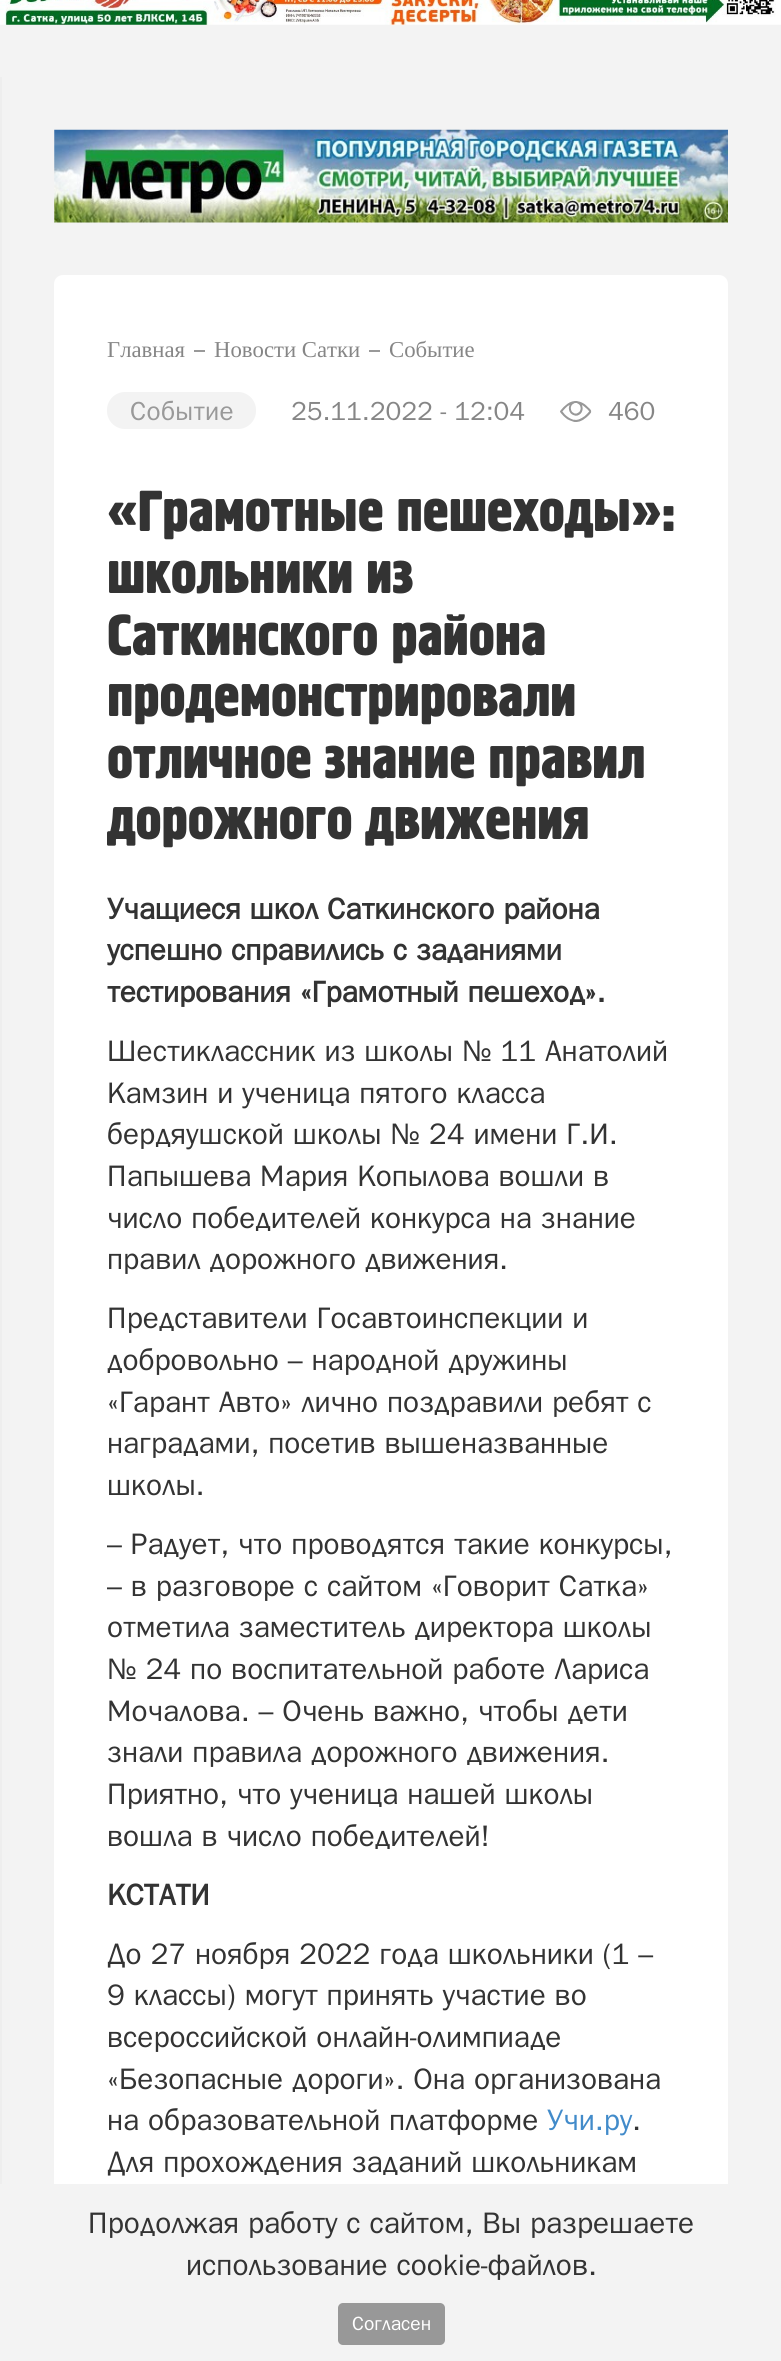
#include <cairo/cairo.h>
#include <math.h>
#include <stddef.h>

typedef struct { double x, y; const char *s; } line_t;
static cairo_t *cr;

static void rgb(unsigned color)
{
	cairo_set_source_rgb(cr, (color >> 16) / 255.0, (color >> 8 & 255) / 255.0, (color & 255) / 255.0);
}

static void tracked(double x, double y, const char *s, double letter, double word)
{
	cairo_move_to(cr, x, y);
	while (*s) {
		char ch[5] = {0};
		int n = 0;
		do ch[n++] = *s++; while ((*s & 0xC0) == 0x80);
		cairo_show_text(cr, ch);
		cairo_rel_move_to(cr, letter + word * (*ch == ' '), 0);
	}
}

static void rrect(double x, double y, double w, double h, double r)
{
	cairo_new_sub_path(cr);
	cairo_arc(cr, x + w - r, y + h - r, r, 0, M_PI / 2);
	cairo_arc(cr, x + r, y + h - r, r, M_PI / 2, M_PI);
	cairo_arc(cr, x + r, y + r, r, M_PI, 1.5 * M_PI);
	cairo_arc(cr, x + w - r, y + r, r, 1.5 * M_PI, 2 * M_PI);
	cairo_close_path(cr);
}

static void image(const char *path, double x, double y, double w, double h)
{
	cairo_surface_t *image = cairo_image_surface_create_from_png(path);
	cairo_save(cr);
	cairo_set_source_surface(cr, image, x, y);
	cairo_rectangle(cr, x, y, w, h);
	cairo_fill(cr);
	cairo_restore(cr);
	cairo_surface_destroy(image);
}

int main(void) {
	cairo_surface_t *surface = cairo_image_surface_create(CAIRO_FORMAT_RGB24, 781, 2361);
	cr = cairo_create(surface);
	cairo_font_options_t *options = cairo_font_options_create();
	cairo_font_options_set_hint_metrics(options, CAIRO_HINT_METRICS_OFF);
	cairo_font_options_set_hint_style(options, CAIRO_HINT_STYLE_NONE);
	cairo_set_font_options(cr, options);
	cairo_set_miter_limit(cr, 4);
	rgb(0xf3f3f3);
	cairo_paint(cr);
	image("img/1.png", 0, 0, 781, 25);
	rgb(0xeeeeee);
	cairo_rectangle(cr, 0, 77, 2, 2107);
	cairo_fill(cr);
	image("img/2.png", 54, 129, 674, 94);
	rgb(0xffffff);
	rrect(54, 275, 674, 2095, 9);
	cairo_fill(cr);
	rgb(0x999999);
	cairo_rectangle(cr, 194, 350, 11, 2);
	cairo_fill(cr);
	cairo_rectangle(cr, 369, 350, 11, 2);
	cairo_fill(cr);
	rgb(0xf3f3f3);
	rrect(107, 392, 149, 37, 18);
	cairo_fill(cr);
	image("img/3.png", 560, 401, 32, 21);
	cairo_rectangle(cr, 54, 2184, 674, 177);
	cairo_fill(cr);
	rgb(0x989898);
	rrect(338, 2303, 107, 42, 5);
	cairo_fill(cr);
	cairo_select_font_face(cr, "Liberation Serif", CAIRO_FONT_SLANT_NORMAL, CAIRO_FONT_WEIGHT_NORMAL);
	cairo_set_font_size(cr, 22.75);
	rgb(0x868686);
	{
		static const line_t items[] = {
			{107, 357, "Главная"},
			{214, 357, "Новости Сатки"},
			{389, 357, "Событие"},
		};
		for (size_t i = 0; i < sizeof items / sizeof *items; i++) {
			cairo_move_to(cr, items[i].x, items[i].y);
			cairo_show_text(cr, items[i].s);
		}
	}
	cairo_select_font_face(cr, "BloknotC", CAIRO_FONT_SLANT_NORMAL, CAIRO_FONT_WEIGHT_NORMAL);
	cairo_set_font_size(cr, 26.25);
	rgb(0x999999);
	tracked(130, 420, "Событие", 0.25, 0);
	rgb(0x868686);
	cairo_move_to(cr, 291, 420);
	cairo_show_text(cr, "25.11.2022 - 12:04");
	cairo_move_to(cr, 608, 420);
	cairo_show_text(cr, "460");
	cairo_select_font_face(cr, "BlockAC", CAIRO_FONT_SLANT_NORMAL, CAIRO_FONT_WEIGHT_NORMAL);
	cairo_set_font_size(cr, 56);
	rgb(0x333333);
	{
		static const line_t items[] = {
			{107, 531, "«Грамотные пешеходы»:"},
			{107, 593, "школьники из"},
			{107, 655, "Саткинского района"},
			{107, 716, "продемонстрировали"},
			{107, 778, "отличное знание правил"},
			{107, 839, "дорожного движения"},
		};
		for (size_t i = 0; i < sizeof items / sizeof *items; i++) {
			cairo_move_to(cr, items[i].x, items[i].y);
			cairo_show_text(cr, items[i].s);
		}
	}
	cairo_select_font_face(cr, "BloknotC", CAIRO_FONT_SLANT_NORMAL, CAIRO_FONT_WEIGHT_BOLD);
	cairo_set_font_size(cr, 29.75);
	{
		static const line_t items[] = {
			{107, 919, "Учащиеся школ Саткинского района"},
			{107, 960, "успешно справились с заданиями"},
			{107, 1002, "тестирования «Грамотный пешеход»."},
		};
		for (size_t i = 0; i < sizeof items / sizeof *items; i++) {
			cairo_move_to(cr, items[i].x, items[i].y);
			cairo_show_text(cr, items[i].s);
		}
	}
	cairo_select_font_face(cr, "BloknotC", CAIRO_FONT_SLANT_NORMAL, CAIRO_FONT_WEIGHT_NORMAL);
	{
		static const line_t items[] = {
			{107, 1061, "Шестиклассник из школы № 11 Анатолий"},
			{107, 1103, "Камзин и ученица пятого класса"},
			{107, 1144, "бердяушской школы № 24 имени Г.И."},
			{107, 1186, "Папышева Мария Копылова вошли в"},
			{107, 1228, "число победителей конкурса на знание"},
			{107, 1269, "правил дорожного движения."},
			{107, 1328, "Представители Госавтоинспекции и"},
			{107, 1370, "добровольно – народной дружины"},
			{107, 1412, "«Гарант Авто» лично поздравили ребят с"},
			{107, 1453, "наградами, посетив вышеназванные"},
			{107, 1495, "школы."},
			{107, 1554, "– Радует, что проводятся такие конкурсы,"},
			{107, 1596, "– в разговоре с сайтом «Говорит Сатка»"},
			{107, 1637, "отметила заместитель директора школы"},
			{107, 1679, "№ 24 по воспитательной работе Лариса"},
			{107, 1721, "Мочалова. – Очень важно, чтобы дети"},
			{107, 1762, "знали правила дорожного движения."},
			{107, 1804, "Приятно, что ученица нашей школы"},
			{107, 1846, "вошла в число победителей!"},
		};
		for (size_t i = 0; i < sizeof items / sizeof *items; i++) {
			cairo_move_to(cr, items[i].x, items[i].y);
			cairo_show_text(cr, items[i].s);
		}
	}
	cairo_select_font_face(cr, "BloknotC", CAIRO_FONT_SLANT_NORMAL, CAIRO_FONT_WEIGHT_BOLD);
	cairo_move_to(cr, 107, 1905);
	cairo_show_text(cr, "КСТАТИ");
	cairo_select_font_face(cr, "BloknotC", CAIRO_FONT_SLANT_NORMAL, CAIRO_FONT_WEIGHT_NORMAL);
	{
		static const line_t items[] = {
			{107, 1964, "До 27 ноября 2022 года школьники (1 –"},
			{107, 2005, "9 классы) могут принять участие во"},
			{107, 2047, "всероссийской онлайн-олимпиаде"},
			{107, 2089, "«Безопасные дороги». Она организована"},
			{107, 2130, "на образовательной платформе"},
		};
		for (size_t i = 0; i < sizeof items / sizeof *items; i++) {
			cairo_move_to(cr, items[i].x, items[i].y);
			cairo_show_text(cr, items[i].s);
		}
	}
	rgb(0x428bca);
	cairo_move_to(cr, 547, 2130);
	cairo_show_text(cr, "Учи.ру");
	rgb(0x333333);
	{
		static const line_t items[] = {
			{632, 2130, "."},
			{107, 2172, "Для прохождения заданий школьникам"},
			{88, 2233, "Продолжая работу с сайтом, Вы разрешаете"},
			{186, 2275, "использование cookie-файлов."},
		};
		for (size_t i = 0; i < sizeof items / sizeof *items; i++) {
			cairo_move_to(cr, items[i].x, items[i].y);
			cairo_show_text(cr, items[i].s);
		}
	}
	cairo_set_font_size(cr, 19.25);
	rgb(0xffffff);
	cairo_move_to(cr, 352, 2330);
	cairo_show_text(cr, "Согласен");
	cairo_surface_write_to_png(surface, "page.png");
	cairo_font_options_destroy(options);
	cairo_destroy(cr);
	cairo_surface_destroy(surface);
	return 0;
}
